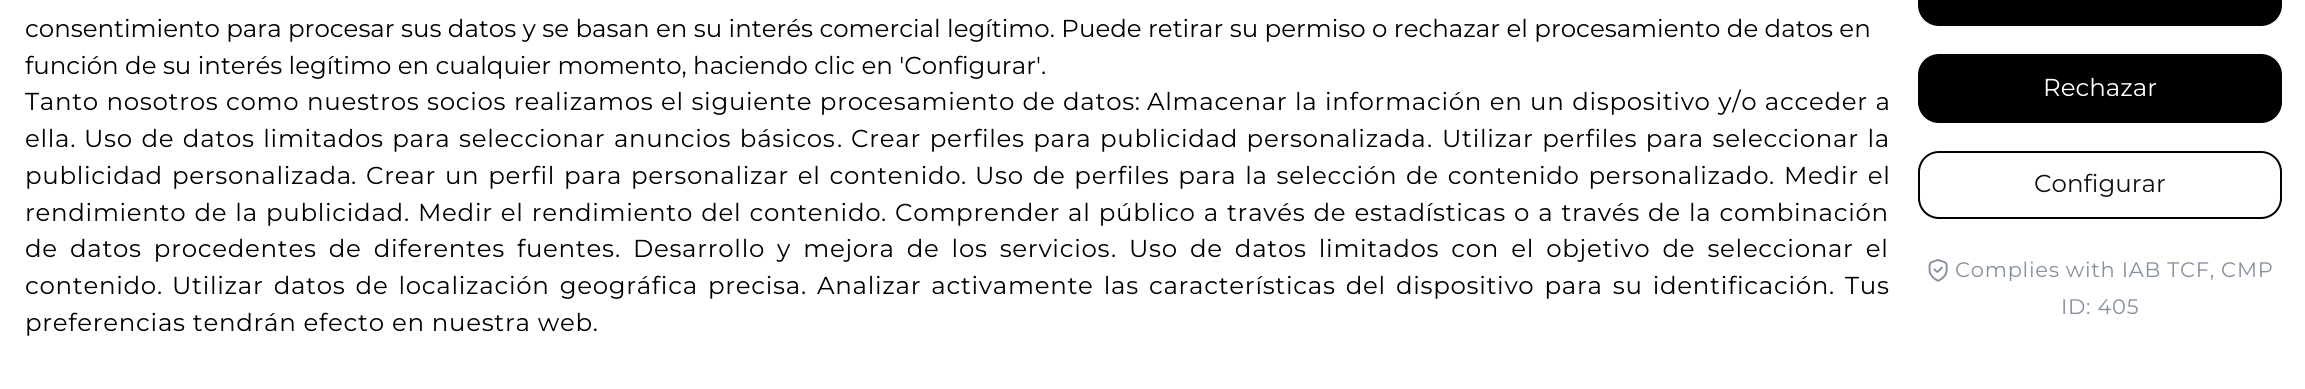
#include <cairo/cairo.h>
#include <math.h>
#include <stddef.h>

typedef struct { double x, y; const char *s; } line_t;
static cairo_t *cr;

static void rgb(unsigned color)
{
	cairo_set_source_rgb(cr, (color >> 16) / 255.0, (color >> 8 & 255) / 255.0, (color & 255) / 255.0);
}

static void tracked(double x, double y, const char *s, double letter, double word)
{
	cairo_move_to(cr, x, y);
	while (*s) {
		char ch[5] = {0};
		int n = 0;
		do ch[n++] = *s++; while ((*s & 0xC0) == 0x80);
		cairo_show_text(cr, ch);
		cairo_rel_move_to(cr, letter + word * (*ch == ' '), 0);
	}
}

static void rrect(double x, double y, double w, double h, double r)
{
	cairo_new_sub_path(cr);
	cairo_arc(cr, x + w - r, y + h - r, r, 0, M_PI / 2);
	cairo_arc(cr, x + r, y + h - r, r, M_PI / 2, M_PI);
	cairo_arc(cr, x + r, y + r, r, M_PI, 1.5 * M_PI);
	cairo_arc(cr, x + w - r, y + r, r, 1.5 * M_PI, 2 * M_PI);
	cairo_close_path(cr);
}

static void image(const char *path, double x, double y, double w, double h)
{
	cairo_surface_t *image = cairo_image_surface_create_from_png(path);
	cairo_save(cr);
	cairo_set_source_surface(cr, image, x, y);
	cairo_rectangle(cr, x, y, w, h);
	cairo_fill(cr);
	cairo_restore(cr);
	cairo_surface_destroy(image);
}

int main(void) {
	cairo_surface_t *surface = cairo_image_surface_create(CAIRO_FORMAT_RGB24, 2305, 389);
	cr = cairo_create(surface);
	cairo_font_options_t *options = cairo_font_options_create();
	cairo_font_options_set_hint_metrics(options, CAIRO_HINT_METRICS_OFF);
	cairo_font_options_set_hint_style(options, CAIRO_HINT_STYLE_NONE);
	cairo_set_font_options(cr, options);
	cairo_set_miter_limit(cr, 4);
	rgb(0xffffff);
	cairo_paint(cr);
	rgb(0x000000);
	rrect(1919, -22, 362, 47, 20);
	cairo_fill_preserve(cr);
	cairo_stroke(cr);
	rrect(1919, 55, 362, 67, 20);
	cairo_fill_preserve(cr);
	cairo_stroke(cr);
	rrect(1919, 152, 362, 66, 20);
	cairo_stroke(cr);
	image("img/1.png", 1928, 259, 20, 23);
	cairo_select_font_face(cr, "Montserrat", CAIRO_FONT_SLANT_NORMAL, CAIRO_FONT_WEIGHT_NORMAL);
	cairo_set_font_size(cr, 24.5);
	cairo_move_to(cr, 25, 37);
	cairo_show_text(cr, "consentimiento para procesar sus datos y se basan en su interés comercial legítimo. Puede retirar su permiso o rechazar el procesamiento de datos en");
	cairo_move_to(cr, 25, 74);
	cairo_show_text(cr, "función de su interés legítimo en cualquier momento, haciendo clic en 'Configurar'.");
	tracked(25, 110, "Tanto nosotros como nuestros socios realizamos el siguiente procesamiento de datos:", 0.7, 0.5);
	tracked(1147, 110, "Almacenar la información en un dispositivo y/o acceder a", 0.7, 0.5);
	tracked(25, 147, "ella.", 0.7, 0);
	tracked(84, 147, "Uso de datos limitados para seleccionar anuncios básicos", 0.7, 1.5);
	tracked(837, 147, ".", 0.7, 0);
	tracked(851, 147, "Crear perfiles para publicidad personalizada", 0.7, 1.5);
	tracked(1427, 147, ".", 0.7, 0);
	tracked(1442, 147, "Utilizar perfiles para seleccionar la", 0.7, 1.5);
	tracked(25, 184, "publicidad personalizada", 0.7, 2);
	tracked(351, 184, ".", 0.7, 0);
	tracked(366, 184, "Crear un perfil para personalizar el contenido", 0.7, 1.75);
	tracked(961, 184, ".", 0.7, 0);
	tracked(975, 184, "Uso de perfiles para la selección de contenido personalizado", 0.7, 1.75);
	tracked(1769, 184, ".", 0.7, 0);
	tracked(1784, 184, "Medir el", 0.7, 2);
	tracked(25, 221, "rendimiento de la publicidad", 0.7, 1);
	tracked(404, 221, ".", 0.7, 0);
	tracked(418, 221, "Medir el rendimiento del contenido", 0.7, 1);
	tracked(881, 221, ".", 0.7, 0);
	tracked(895, 221, "Comprender al público a través de estadísticas o a través de la combinación", 0.7, 1);
	tracked(25, 257, "de datos procedentes de diferentes fuentes", 0.7, 5);
	tracked(615, 257, ".", 0.7, 0);
	tracked(633, 257, "Desarrollo y mejora de los servicios", 0.7, 5);
	tracked(1111, 257, ".", 0.7, 0);
	tracked(1129, 257, "Uso de datos limitados con el objetivo de seleccionar el", 0.7, 5);
	tracked(25, 294, "contenido.", 0.7, 0);
	tracked(172, 294, "Utilizar datos de localización geográfica precisa", 0.7, 3);
	tracked(801, 294, ".", 0.7, 0);
	tracked(817, 294, "Analizar activamente las características del dispositivo para su identificación", 0.7, 3);
	{
		static const line_t items[] = {
			{1829, 294, "."},
			{1845, 294, "Tus"},
			{25, 331, "preferencias tendrán efecto en nuestra web."},
		};
		for (size_t i = 0; i < sizeof items / sizeof *items; i++) {
			tracked(items[i].x, items[i].y, items[i].s, 0.7, 0);
		}
	}
	rgb(0xffffff);
	cairo_move_to(cr, 2043, 96);
	cairo_show_text(cr, "Rechazar");
	rgb(0x111111);
	cairo_move_to(cr, 2034, 192);
	cairo_show_text(cr, "Configurar");
	cairo_set_font_size(cr, 21);
	rgb(0x858fa0);
	tracked(1955, 277, "Complies with IAB TCF, CMP", 0.7, 0);
	tracked(2061, 314, "ID: 405", 0.7, 0);
	cairo_surface_write_to_png(surface, "page.png");
	cairo_font_options_destroy(options);
	cairo_destroy(cr);
	cairo_surface_destroy(surface);
	return 0;
}
